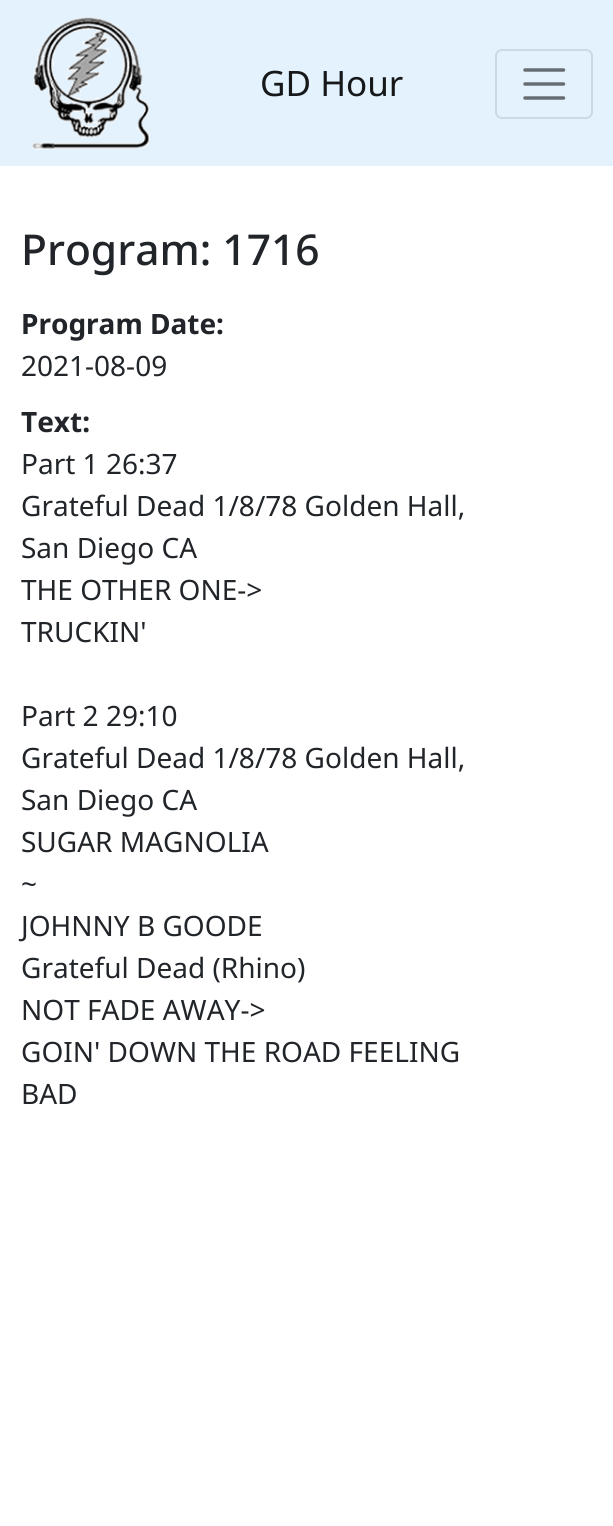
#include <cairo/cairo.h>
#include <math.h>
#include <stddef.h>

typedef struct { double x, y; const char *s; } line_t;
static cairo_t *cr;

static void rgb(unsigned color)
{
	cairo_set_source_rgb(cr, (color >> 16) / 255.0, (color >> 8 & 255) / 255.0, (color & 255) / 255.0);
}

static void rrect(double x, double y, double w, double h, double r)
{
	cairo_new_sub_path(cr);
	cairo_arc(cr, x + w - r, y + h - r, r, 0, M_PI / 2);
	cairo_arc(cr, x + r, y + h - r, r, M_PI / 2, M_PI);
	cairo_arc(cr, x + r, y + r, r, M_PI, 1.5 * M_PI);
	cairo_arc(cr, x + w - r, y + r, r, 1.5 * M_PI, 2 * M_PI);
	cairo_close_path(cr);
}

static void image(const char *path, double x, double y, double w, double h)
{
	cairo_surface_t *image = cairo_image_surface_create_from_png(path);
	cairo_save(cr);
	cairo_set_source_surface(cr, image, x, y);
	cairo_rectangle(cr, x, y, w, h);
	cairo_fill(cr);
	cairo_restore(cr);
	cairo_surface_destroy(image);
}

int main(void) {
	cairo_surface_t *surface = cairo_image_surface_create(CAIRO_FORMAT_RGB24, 613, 1526);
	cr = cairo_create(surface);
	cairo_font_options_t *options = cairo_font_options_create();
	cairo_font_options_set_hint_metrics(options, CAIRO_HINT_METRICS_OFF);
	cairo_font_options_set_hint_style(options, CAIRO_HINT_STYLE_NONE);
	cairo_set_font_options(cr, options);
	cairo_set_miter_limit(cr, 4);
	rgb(0xffffff);
	cairo_paint(cr);
	rgb(0xe3f2fd);
	cairo_rectangle(cr, 0, 0, 613, 166);
	cairo_fill(cr);
	image("img/1.png", 32, 17, 118, 133);
	rrect(496, 50, 96, 68, 6);
	rgb(0xccdae4);
	cairo_stroke(cr);
	cairo_new_path(cr);
	cairo_move_to(cr, 525, 70);
	cairo_line_to(cr, 563.5, 70);
	cairo_move_to(cr, 525, 84);
	cairo_line_to(cr, 563.5, 84);
	cairo_move_to(cr, 525, 98);
	cairo_line_to(cr, 563.5, 98);
	rgb(0x666d72);
	cairo_set_line_width(cr, 3.5);
	cairo_set_line_cap(cr, CAIRO_LINE_CAP_ROUND);
	cairo_stroke(cr);
	cairo_select_font_face(cr, "Noto Sans", CAIRO_FONT_SLANT_NORMAL, CAIRO_FONT_WEIGHT_NORMAL);
	cairo_set_font_size(cr, 35);
	rgb(0x171819);
	cairo_move_to(cr, 260, 96);
	cairo_show_text(cr, "GD Hour");
	cairo_select_font_face(cr, "Noto Sans Medium", CAIRO_FONT_SLANT_NORMAL, CAIRO_FONT_WEIGHT_NORMAL);
	cairo_set_font_size(cr, 42.5);
	rgb(0x212529);
	cairo_move_to(cr, 21, 265);
	cairo_show_text(cr, "Program: 1716");
	cairo_select_font_face(cr, "Noto Sans", CAIRO_FONT_SLANT_NORMAL, CAIRO_FONT_WEIGHT_BOLD);
	cairo_set_font_size(cr, 28);
	cairo_move_to(cr, 21, 334);
	cairo_show_text(cr, "Program Date:");
	cairo_select_font_face(cr, "Noto Sans", CAIRO_FONT_SLANT_NORMAL, CAIRO_FONT_WEIGHT_NORMAL);
	cairo_move_to(cr, 21, 376);
	cairo_show_text(cr, "2021-08-09");
	cairo_select_font_face(cr, "Noto Sans", CAIRO_FONT_SLANT_NORMAL, CAIRO_FONT_WEIGHT_BOLD);
	cairo_move_to(cr, 21, 432);
	cairo_show_text(cr, "Text:");
	cairo_select_font_face(cr, "Noto Sans", CAIRO_FONT_SLANT_NORMAL, CAIRO_FONT_WEIGHT_NORMAL);
	{
		static const line_t items[] = {
			{21, 474, "Part 1 26:37"},
			{21, 516, "Grateful Dead 1/8/78 Golden Hall,"},
			{21, 558, "San Diego CA"},
			{21, 600, "THE OTHER ONE->"},
			{21, 642, "TRUCKIN'"},
			{21, 726, "Part 2 29:10"},
			{21, 768, "Grateful Dead 1/8/78 Golden Hall,"},
			{21, 810, "San Diego CA"},
			{21, 852, "SUGAR MAGNOLIA"},
			{21, 894, "~"},
			{21, 936, "JOHNNY B GOODE"},
			{21, 978, "Grateful Dead (Rhino)"},
			{21, 1020, "NOT FADE AWAY->"},
			{21, 1062, "GOIN' DOWN THE ROAD FEELING"},
			{21, 1104, "BAD"},
		};
		for (size_t i = 0; i < sizeof items / sizeof *items; i++) {
			cairo_move_to(cr, items[i].x, items[i].y);
			cairo_show_text(cr, items[i].s);
		}
	}
	cairo_surface_write_to_png(surface, "page.png");
	cairo_font_options_destroy(options);
	cairo_destroy(cr);
	cairo_surface_destroy(surface);
	return 0;
}
